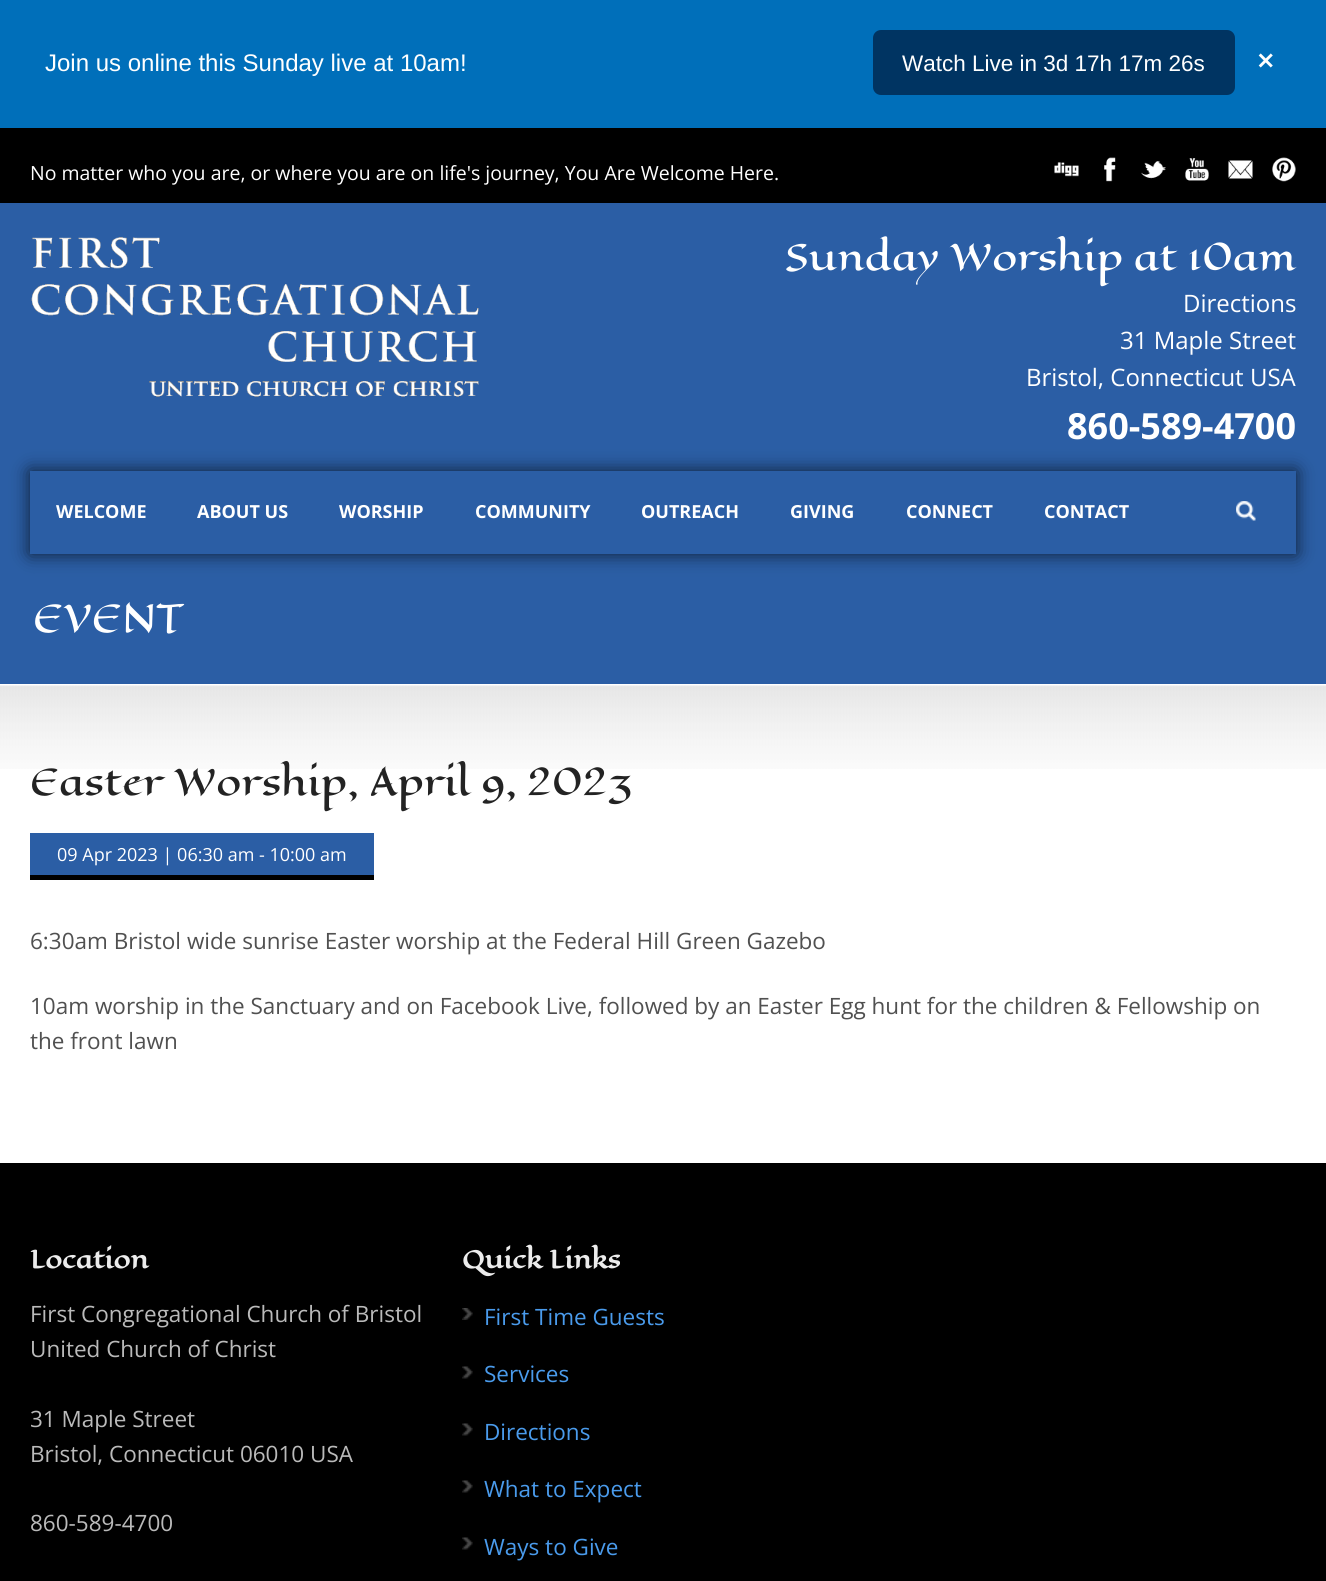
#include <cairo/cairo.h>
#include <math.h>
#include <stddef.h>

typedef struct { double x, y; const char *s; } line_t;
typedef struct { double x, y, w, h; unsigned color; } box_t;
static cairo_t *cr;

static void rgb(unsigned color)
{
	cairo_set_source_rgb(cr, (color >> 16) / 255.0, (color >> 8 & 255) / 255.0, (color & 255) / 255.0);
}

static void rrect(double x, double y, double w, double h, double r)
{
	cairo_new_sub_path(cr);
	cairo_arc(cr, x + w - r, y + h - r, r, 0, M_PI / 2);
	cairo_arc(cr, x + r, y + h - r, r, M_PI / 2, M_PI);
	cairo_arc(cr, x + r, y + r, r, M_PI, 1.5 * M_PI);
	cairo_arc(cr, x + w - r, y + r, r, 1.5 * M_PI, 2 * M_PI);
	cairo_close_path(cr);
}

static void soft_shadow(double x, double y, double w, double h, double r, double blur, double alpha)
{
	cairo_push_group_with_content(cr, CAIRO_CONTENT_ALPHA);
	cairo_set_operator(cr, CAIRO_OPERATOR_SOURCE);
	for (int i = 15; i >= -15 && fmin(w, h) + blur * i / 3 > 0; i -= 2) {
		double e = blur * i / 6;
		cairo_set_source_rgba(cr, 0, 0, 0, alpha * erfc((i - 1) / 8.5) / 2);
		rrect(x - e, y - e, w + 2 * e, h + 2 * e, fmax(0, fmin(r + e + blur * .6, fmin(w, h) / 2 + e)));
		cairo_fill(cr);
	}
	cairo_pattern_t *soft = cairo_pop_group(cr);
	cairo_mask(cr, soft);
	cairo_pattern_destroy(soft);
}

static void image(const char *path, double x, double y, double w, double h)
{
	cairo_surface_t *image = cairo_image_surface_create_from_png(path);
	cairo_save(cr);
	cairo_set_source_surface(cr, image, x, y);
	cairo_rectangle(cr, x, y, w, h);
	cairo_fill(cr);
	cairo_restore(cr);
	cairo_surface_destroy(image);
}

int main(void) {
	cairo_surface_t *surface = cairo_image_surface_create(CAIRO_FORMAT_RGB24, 1326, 1581);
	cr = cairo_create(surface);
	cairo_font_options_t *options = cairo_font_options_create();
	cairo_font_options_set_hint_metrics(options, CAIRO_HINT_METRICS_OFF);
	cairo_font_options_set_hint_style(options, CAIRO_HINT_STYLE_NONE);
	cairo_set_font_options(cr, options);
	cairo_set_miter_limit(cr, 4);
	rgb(0xffffff);
	cairo_paint(cr);
	rgb(0x006fba);
	cairo_rectangle(cr, 0, 0, 1326, 128);
	cairo_fill(cr);
	rgb(0x003462);
	rrect(873, 30, 362, 65, 8);
	cairo_fill(cr);
	rgb(0x000000);
	cairo_rectangle(cr, 0, 128, 1326, 75);
	cairo_fill(cr);
	image("img/1.png", 1054, 162, 25, 15);
	image("img/2.png", 1104, 157, 12, 25);
	image("img/3.png", 1141, 161, 25, 18);
	image("img/4.png", 1185, 158, 24, 23);
	image("img/5.png", 1228, 160, 25, 19);
	image("img/6.png", 1272, 157, 24, 25);
	rgb(0x2b5ea5);
	cairo_rectangle(cr, 0, 203, 1326, 481);
	cairo_fill(cr);
	image("img/7.png", 31, 237, 448, 160);
	rgb(0x000000);
	soft_shadow(30, 471, 1266, 83, 0, 9, 0.7);
	rgb(0x2b5ea5);
	cairo_rectangle(cr, 30, 471, 1266, 83);
	cairo_fill(cr);
	image("img/8.png", 1236, 501, 20, 20);
	image("img/9.png", 0, 685, 1326, 84);
	{
		static const box_t items[] = {
			{30, 833, 344, 42, 0x2b5ea5},
			{30, 875, 344, 5, 0x000000},
			{0, 1163, 1326, 418, 0x000000},
		};
		for (size_t i = 0; i < sizeof items / sizeof *items; i++) {
			rgb(items[i].color);
			cairo_rectangle(cr, items[i].x, items[i].y, items[i].w, items[i].h);
			cairo_fill(cr);
		}
	}
	image("img/10.png", 462, 1308, 11, 12);
	image("img/11.png", 462, 1366, 11, 13);
	image("img/11.png", 462, 1423, 11, 13);
	image("img/11.png", 462, 1480, 11, 13);
	image("img/11.png", 462, 1537, 11, 13);
	cairo_select_font_face(cr, "Liberation Sans", CAIRO_FONT_SLANT_NORMAL, CAIRO_FONT_WEIGHT_NORMAL);
	cairo_set_font_size(cr, 24);
	rgb(0xffffff);
	cairo_move_to(cr, 45, 71);
	cairo_show_text(cr, "Join us online this Sunday live at 10am!");
	cairo_set_font_size(cr, 22.5);
	cairo_move_to(cr, 902, 71);
	cairo_show_text(cr, "Watch Live in 3d 17h 17m 26s");
	cairo_select_font_face(cr, "DejaVu Sans", CAIRO_FONT_SLANT_NORMAL, CAIRO_FONT_WEIGHT_BOLD);
	cairo_move_to(cr, 1256, 69);
	cairo_show_text(cr, "✕");
	cairo_select_font_face(cr, "Open Sans", CAIRO_FONT_SLANT_NORMAL, CAIRO_FONT_WEIGHT_NORMAL);
	cairo_set_font_size(cr, 19.5);
	cairo_move_to(cr, 30, 180);
	cairo_show_text(cr, "No matter who you are, or where you are on life's journey, You Are Welcome Here.");
	cairo_select_font_face(cr, "Eagle Lake", CAIRO_FONT_SLANT_NORMAL, CAIRO_FONT_WEIGHT_NORMAL);
	cairo_set_font_size(cr, 36);
	cairo_move_to(cr, 785, 270);
	cairo_show_text(cr, "Sunday Worship at 10am");
	cairo_select_font_face(cr, "Open Sans", CAIRO_FONT_SLANT_NORMAL, CAIRO_FONT_WEIGHT_NORMAL);
	cairo_set_font_size(cr, 24);
	{
		static const line_t items[] = {
			{1183, 312, "Directions"},
			{1120, 349, "31 Maple Street"},
			{1026, 386, "Bristol, Connecticut USA"},
		};
		for (size_t i = 0; i < sizeof items / sizeof *items; i++) {
			cairo_move_to(cr, items[i].x, items[i].y);
			cairo_show_text(cr, items[i].s);
		}
	}
	cairo_select_font_face(cr, "Open Sans", CAIRO_FONT_SLANT_NORMAL, CAIRO_FONT_WEIGHT_BOLD);
	cairo_set_font_size(cr, 36);
	cairo_move_to(cr, 1067, 439);
	cairo_show_text(cr, "860-589-4700");
	cairo_set_font_size(cr, 18);
	{
		static const line_t items[] = {
			{56, 518, "WELCOME"},
			{197, 518, "ABOUT US"},
			{339, 518, "WORSHIP"},
			{475, 518, "COMMUNITY"},
			{641, 518, "OUTREACH"},
			{790, 518, "GIVING"},
			{906, 518, "CONNECT"},
			{1044, 518, "CONTACT"},
		};
		for (size_t i = 0; i < sizeof items / sizeof *items; i++) {
			cairo_move_to(cr, items[i].x, items[i].y);
			cairo_show_text(cr, items[i].s);
		}
	}
	cairo_select_font_face(cr, "Eagle Lake", CAIRO_FONT_SLANT_NORMAL, CAIRO_FONT_WEIGHT_NORMAL);
	cairo_set_font_size(cr, 37.5);
	cairo_move_to(cr, 33, 632);
	cairo_show_text(cr, "EVENT");
	cairo_set_font_size(cr, 36);
	rgb(0x232323);
	cairo_move_to(cr, 30, 795);
	cairo_show_text(cr, "Easter Worship, April 9, 2023");
	cairo_select_font_face(cr, "Open Sans", CAIRO_FONT_SLANT_NORMAL, CAIRO_FONT_WEIGHT_NORMAL);
	cairo_set_font_size(cr, 18);
	rgb(0xffffff);
	cairo_move_to(cr, 57, 861);
	cairo_show_text(cr, "09 Apr 2023 | 06:30 am - 10:00 am");
	cairo_set_font_size(cr, 22.5);
	rgb(0x505050);
	{
		static const line_t items[] = {
			{30, 949, "6:30am Bristol wide sunrise Easter worship at the Federal Hill Green Gazebo"},
			{30, 1014, "10am worship in the Sanctuary and on Facebook Live, followed by an Easter Egg hunt for the children & Fellowship on"},
			{30, 1049, "the front lawn"},
		};
		for (size_t i = 0; i < sizeof items / sizeof *items; i++) {
			cairo_move_to(cr, items[i].x, items[i].y);
			cairo_show_text(cr, items[i].s);
		}
	}
	cairo_select_font_face(cr, "Eagle Lake", CAIRO_FONT_SLANT_NORMAL, CAIRO_FONT_WEIGHT_BOLD);
	cairo_set_font_size(cr, 24);
	rgb(0xececec);
	cairo_move_to(cr, 30, 1268);
	cairo_show_text(cr, "Location");
	cairo_select_font_face(cr, "Open Sans", CAIRO_FONT_SLANT_NORMAL, CAIRO_FONT_WEIGHT_NORMAL);
	cairo_set_font_size(cr, 22.5);
	rgb(0xbababa);
	{
		static const line_t items[] = {
			{30, 1322, "First Congregational Church of Bristol"},
			{30, 1357, "United Church of Christ"},
			{30, 1427, "31 Maple Street"},
			{30, 1462, "Bristol, Connecticut 06010 USA"},
			{30, 1531, "860-589-4700"},
		};
		for (size_t i = 0; i < sizeof items / sizeof *items; i++) {
			cairo_move_to(cr, items[i].x, items[i].y);
			cairo_show_text(cr, items[i].s);
		}
	}
	cairo_select_font_face(cr, "Eagle Lake", CAIRO_FONT_SLANT_NORMAL, CAIRO_FONT_WEIGHT_BOLD);
	cairo_set_font_size(cr, 24);
	rgb(0xececec);
	cairo_move_to(cr, 462, 1268);
	cairo_show_text(cr, "Quick Links");
	cairo_select_font_face(cr, "Open Sans", CAIRO_FONT_SLANT_NORMAL, CAIRO_FONT_WEIGHT_NORMAL);
	cairo_set_font_size(cr, 22.5);
	rgb(0x4a9bec);
	{
		static const line_t items[] = {
			{484, 1325, "First Time Guests"},
			{484, 1382, "Services"},
			{484, 1440, "Directions"},
			{484, 1497, "What to Expect"},
			{484, 1555, "Ways to Give"},
		};
		for (size_t i = 0; i < sizeof items / sizeof *items; i++) {
			cairo_move_to(cr, items[i].x, items[i].y);
			cairo_show_text(cr, items[i].s);
		}
	}
	cairo_surface_write_to_png(surface, "page.png");
	cairo_font_options_destroy(options);
	cairo_destroy(cr);
	cairo_surface_destroy(surface);
	return 0;
}
